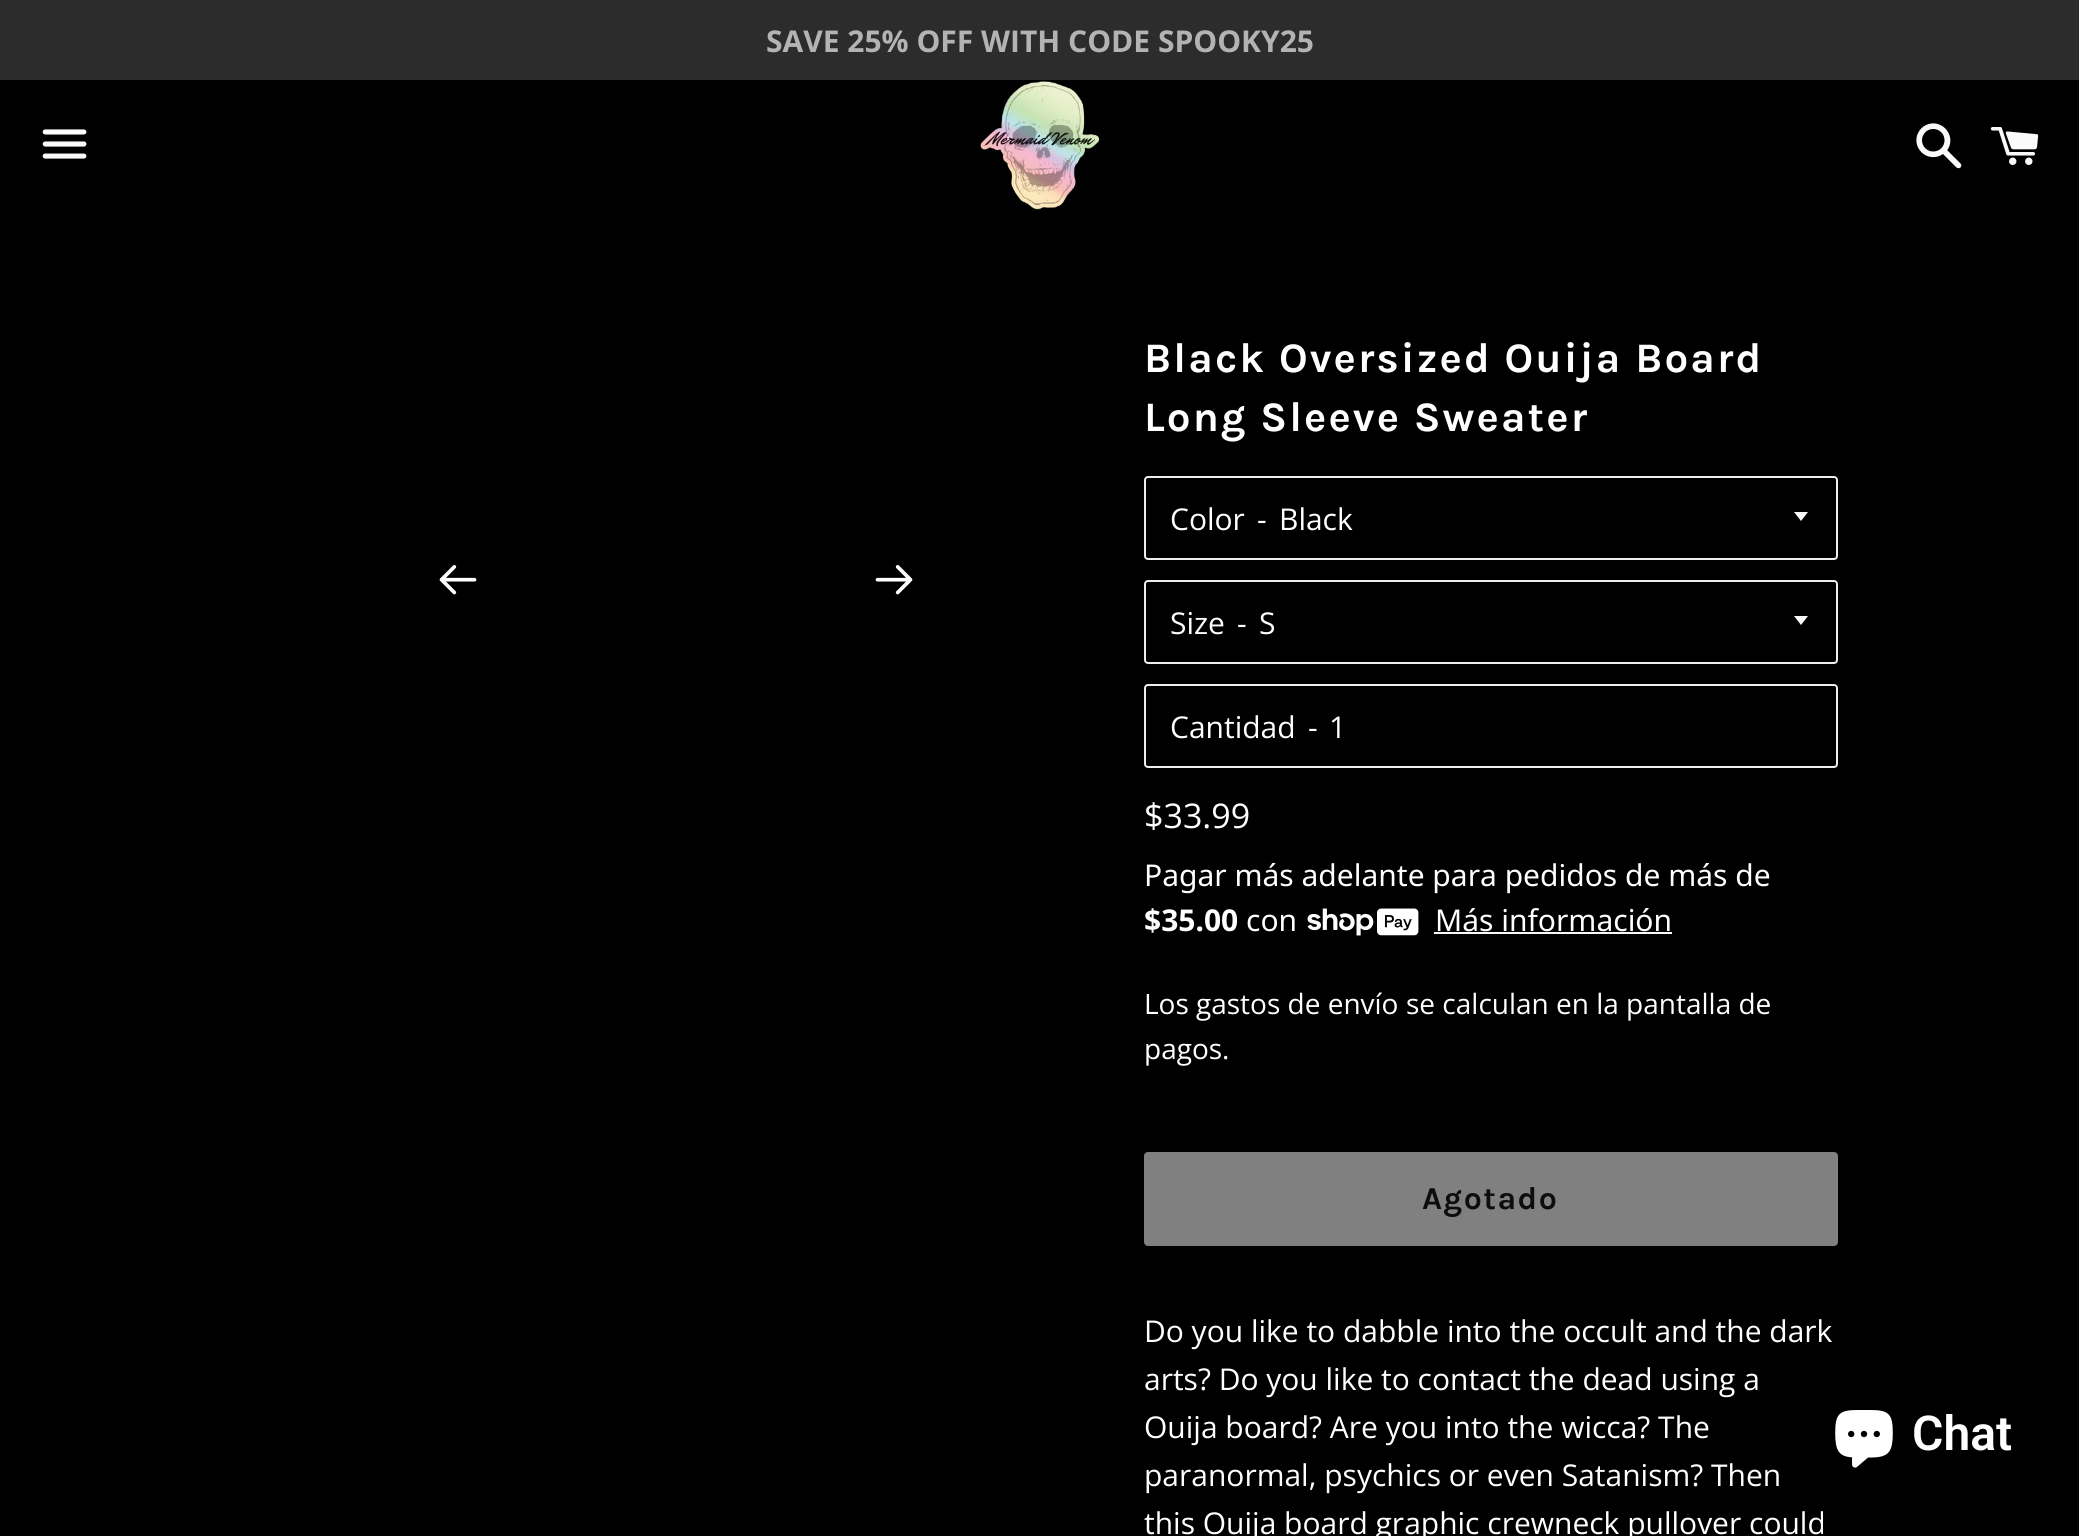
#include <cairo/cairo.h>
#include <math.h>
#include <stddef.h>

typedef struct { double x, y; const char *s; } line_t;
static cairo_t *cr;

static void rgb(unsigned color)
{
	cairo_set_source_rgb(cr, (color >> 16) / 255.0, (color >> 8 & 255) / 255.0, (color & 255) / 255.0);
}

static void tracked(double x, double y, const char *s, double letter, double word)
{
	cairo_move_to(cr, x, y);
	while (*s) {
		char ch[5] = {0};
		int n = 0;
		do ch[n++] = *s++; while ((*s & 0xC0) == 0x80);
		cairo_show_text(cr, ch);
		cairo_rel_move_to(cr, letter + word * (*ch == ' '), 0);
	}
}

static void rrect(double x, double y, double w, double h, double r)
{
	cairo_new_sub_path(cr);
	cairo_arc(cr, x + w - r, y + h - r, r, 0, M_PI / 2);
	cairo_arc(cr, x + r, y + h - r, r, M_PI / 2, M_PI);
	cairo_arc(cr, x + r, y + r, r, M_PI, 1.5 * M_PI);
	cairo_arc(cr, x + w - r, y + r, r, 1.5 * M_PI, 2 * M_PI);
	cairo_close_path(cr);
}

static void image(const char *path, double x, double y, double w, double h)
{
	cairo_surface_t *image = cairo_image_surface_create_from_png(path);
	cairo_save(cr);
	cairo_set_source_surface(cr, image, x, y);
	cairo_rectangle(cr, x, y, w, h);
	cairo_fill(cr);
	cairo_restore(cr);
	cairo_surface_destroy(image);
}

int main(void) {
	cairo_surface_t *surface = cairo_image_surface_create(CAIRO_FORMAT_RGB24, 2079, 1536);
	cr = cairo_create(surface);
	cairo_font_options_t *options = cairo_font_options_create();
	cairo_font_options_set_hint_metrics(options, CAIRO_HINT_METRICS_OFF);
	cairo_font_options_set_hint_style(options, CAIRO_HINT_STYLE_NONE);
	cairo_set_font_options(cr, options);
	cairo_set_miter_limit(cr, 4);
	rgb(0x000000);
	cairo_paint(cr);
	rgb(0x2c2c2c);
	cairo_rectangle(cr, 0, 0, 2079, 80);
	cairo_fill(cr);
	image("img/1.png", 42, 129, 45, 30);
	image("img/2.png", 980, 81, 120, 129);
	image("img/3.png", 1916, 123, 46, 46);
	image("img/4.png", 1990, 127, 49, 38);
	image("img/5.png", 439, 565, 38, 30);
	image("img/6.png", 875, 565, 38, 30);
	rrect(1145, 477, 692, 82, 3);
	rgb(0xeeeeee);
	cairo_stroke(cr);
	rgb(0xfafafa);
	cairo_new_path(cr);
	cairo_move_to(cr, 1794, 512);
	cairo_line_to(cr, 1801, 521);
	cairo_line_to(cr, 1808, 512);
	cairo_close_path(cr);
	cairo_fill(cr);
	rrect(1145, 581, 692, 82, 3);
	rgb(0xeeeeee);
	cairo_stroke(cr);
	rgb(0xfafafa);
	cairo_new_path(cr);
	cairo_move_to(cr, 1794, 616);
	cairo_line_to(cr, 1801, 625);
	cairo_line_to(cr, 1808, 616);
	cairo_close_path(cr);
	cairo_fill(cr);
	rrect(1145, 685, 692, 82, 3);
	rgb(0xeeeeee);
	cairo_stroke(cr);
	image("img/7.png", 1307, 908, 112, 28);
	rgb(0xfafafa);
	cairo_rectangle(cr, 1434, 932, 238, 2);
	cairo_fill(cr);
	rgb(0x808080);
	rrect(1146, 1154, 690, 90, 2);
	cairo_fill_preserve(cr);
	cairo_set_line_width(cr, 4);
	cairo_stroke(cr);
	image("img/8.png", 1835, 1410, 58, 58);
	cairo_select_font_face(cr, "Open Sans", CAIRO_FONT_SLANT_NORMAL, CAIRO_FONT_WEIGHT_BOLD);
	cairo_set_font_size(cr, 30);
	rgb(0xb3b3b3);
	cairo_move_to(cr, 766, 52);
	cairo_show_text(cr, "SAVE 25% OFF WITH CODE SPOOKY25");
	cairo_select_font_face(cr, "Karla", CAIRO_FONT_SLANT_NORMAL, CAIRO_FONT_WEIGHT_BOLD);
	cairo_set_font_size(cr, 42);
	rgb(0xffffff);
	tracked(1144, 372, "Black Oversized Ouija Board", 2.1, 0);
	tracked(1144, 431, "Long Sleeve Sweater", 2.1, 0);
	cairo_select_font_face(cr, "Open Sans", CAIRO_FONT_SLANT_NORMAL, CAIRO_FONT_WEIGHT_NORMAL);
	cairo_set_font_size(cr, 30);
	{
		static const line_t items[] = {
			{1170, 530, "Color"},
			{1257, 530, "-"},
			{1279, 530, "Black"},
			{1170, 634, "Size"},
			{1237, 634, "-"},
			{1259, 634, "S"},
			{1170, 738, "Cantidad"},
			{1308, 738, "-"},
			{1329, 738, "1"},
		};
		for (size_t i = 0; i < sizeof items / sizeof *items; i++) {
			cairo_move_to(cr, items[i].x, items[i].y);
			cairo_show_text(cr, items[i].s);
		}
	}
	cairo_set_font_size(cr, 34);
	cairo_move_to(cr, 1144, 828);
	cairo_show_text(cr, "$33.99");
	cairo_select_font_face(cr, "Noto Sans", CAIRO_FONT_SLANT_NORMAL, CAIRO_FONT_WEIGHT_NORMAL);
	cairo_set_font_size(cr, 30);
	cairo_move_to(cr, 1144, 886);
	cairo_show_text(cr, "Pagar más adelante para pedidos de más de");
	cairo_select_font_face(cr, "Noto Sans", CAIRO_FONT_SLANT_NORMAL, CAIRO_FONT_WEIGHT_BOLD);
	cairo_move_to(cr, 1144, 931);
	cairo_show_text(cr, "$35.00");
	cairo_select_font_face(cr, "Noto Sans", CAIRO_FONT_SLANT_NORMAL, CAIRO_FONT_WEIGHT_NORMAL);
	cairo_move_to(cr, 1246, 931);
	cairo_show_text(cr, "con");
	cairo_move_to(cr, 1435, 931);
	cairo_show_text(cr, "Más información");
	cairo_select_font_face(cr, "Open Sans", CAIRO_FONT_SLANT_NORMAL, CAIRO_FONT_WEIGHT_NORMAL);
	cairo_set_font_size(cr, 28);
	{
		static const line_t items[] = {
			{1144, 1014, "Los"},
			{1196, 1014, "gastos de envío"},
			{1406, 1014, "se calculan en la pantalla de"},
			{1144, 1059, "pagos."},
		};
		for (size_t i = 0; i < sizeof items / sizeof *items; i++) {
			cairo_move_to(cr, items[i].x, items[i].y);
			cairo_show_text(cr, items[i].s);
		}
	}
	cairo_select_font_face(cr, "Karla", CAIRO_FONT_SLANT_NORMAL, CAIRO_FONT_WEIGHT_BOLD);
	cairo_set_font_size(cr, 32);
	rgb(0x0d0d0d);
	tracked(1422, 1209, "Agotado", 1.5, 0);
	cairo_select_font_face(cr, "Open Sans", CAIRO_FONT_SLANT_NORMAL, CAIRO_FONT_WEIGHT_NORMAL);
	cairo_set_font_size(cr, 30);
	rgb(0xffffff);
	{
		static const line_t items[] = {
			{1144, 1342, "Do you like to dabble into the occult and the dark"},
			{1144, 1390, "arts? Do you like to contact the dead using a"},
			{1144, 1438, "Ouija board? Are you into the wicca? The"},
			{1144, 1486, "paranormal, psychics or even Satanism? Then"},
			{1144, 1534, "this Ouija board graphic crewneck pullover could"},
		};
		for (size_t i = 0; i < sizeof items / sizeof *items; i++) {
			cairo_move_to(cr, items[i].x, items[i].y);
			cairo_show_text(cr, items[i].s);
		}
	}
	cairo_select_font_face(cr, "Roboto SemiBold", CAIRO_FONT_SLANT_NORMAL, CAIRO_FONT_WEIGHT_NORMAL);
	cairo_set_font_size(cr, 48);
	cairo_move_to(cr, 1912, 1450);
	cairo_show_text(cr, "Chat");
	cairo_surface_write_to_png(surface, "page.png");
	cairo_font_options_destroy(options);
	cairo_destroy(cr);
	cairo_surface_destroy(surface);
	return 0;
}
